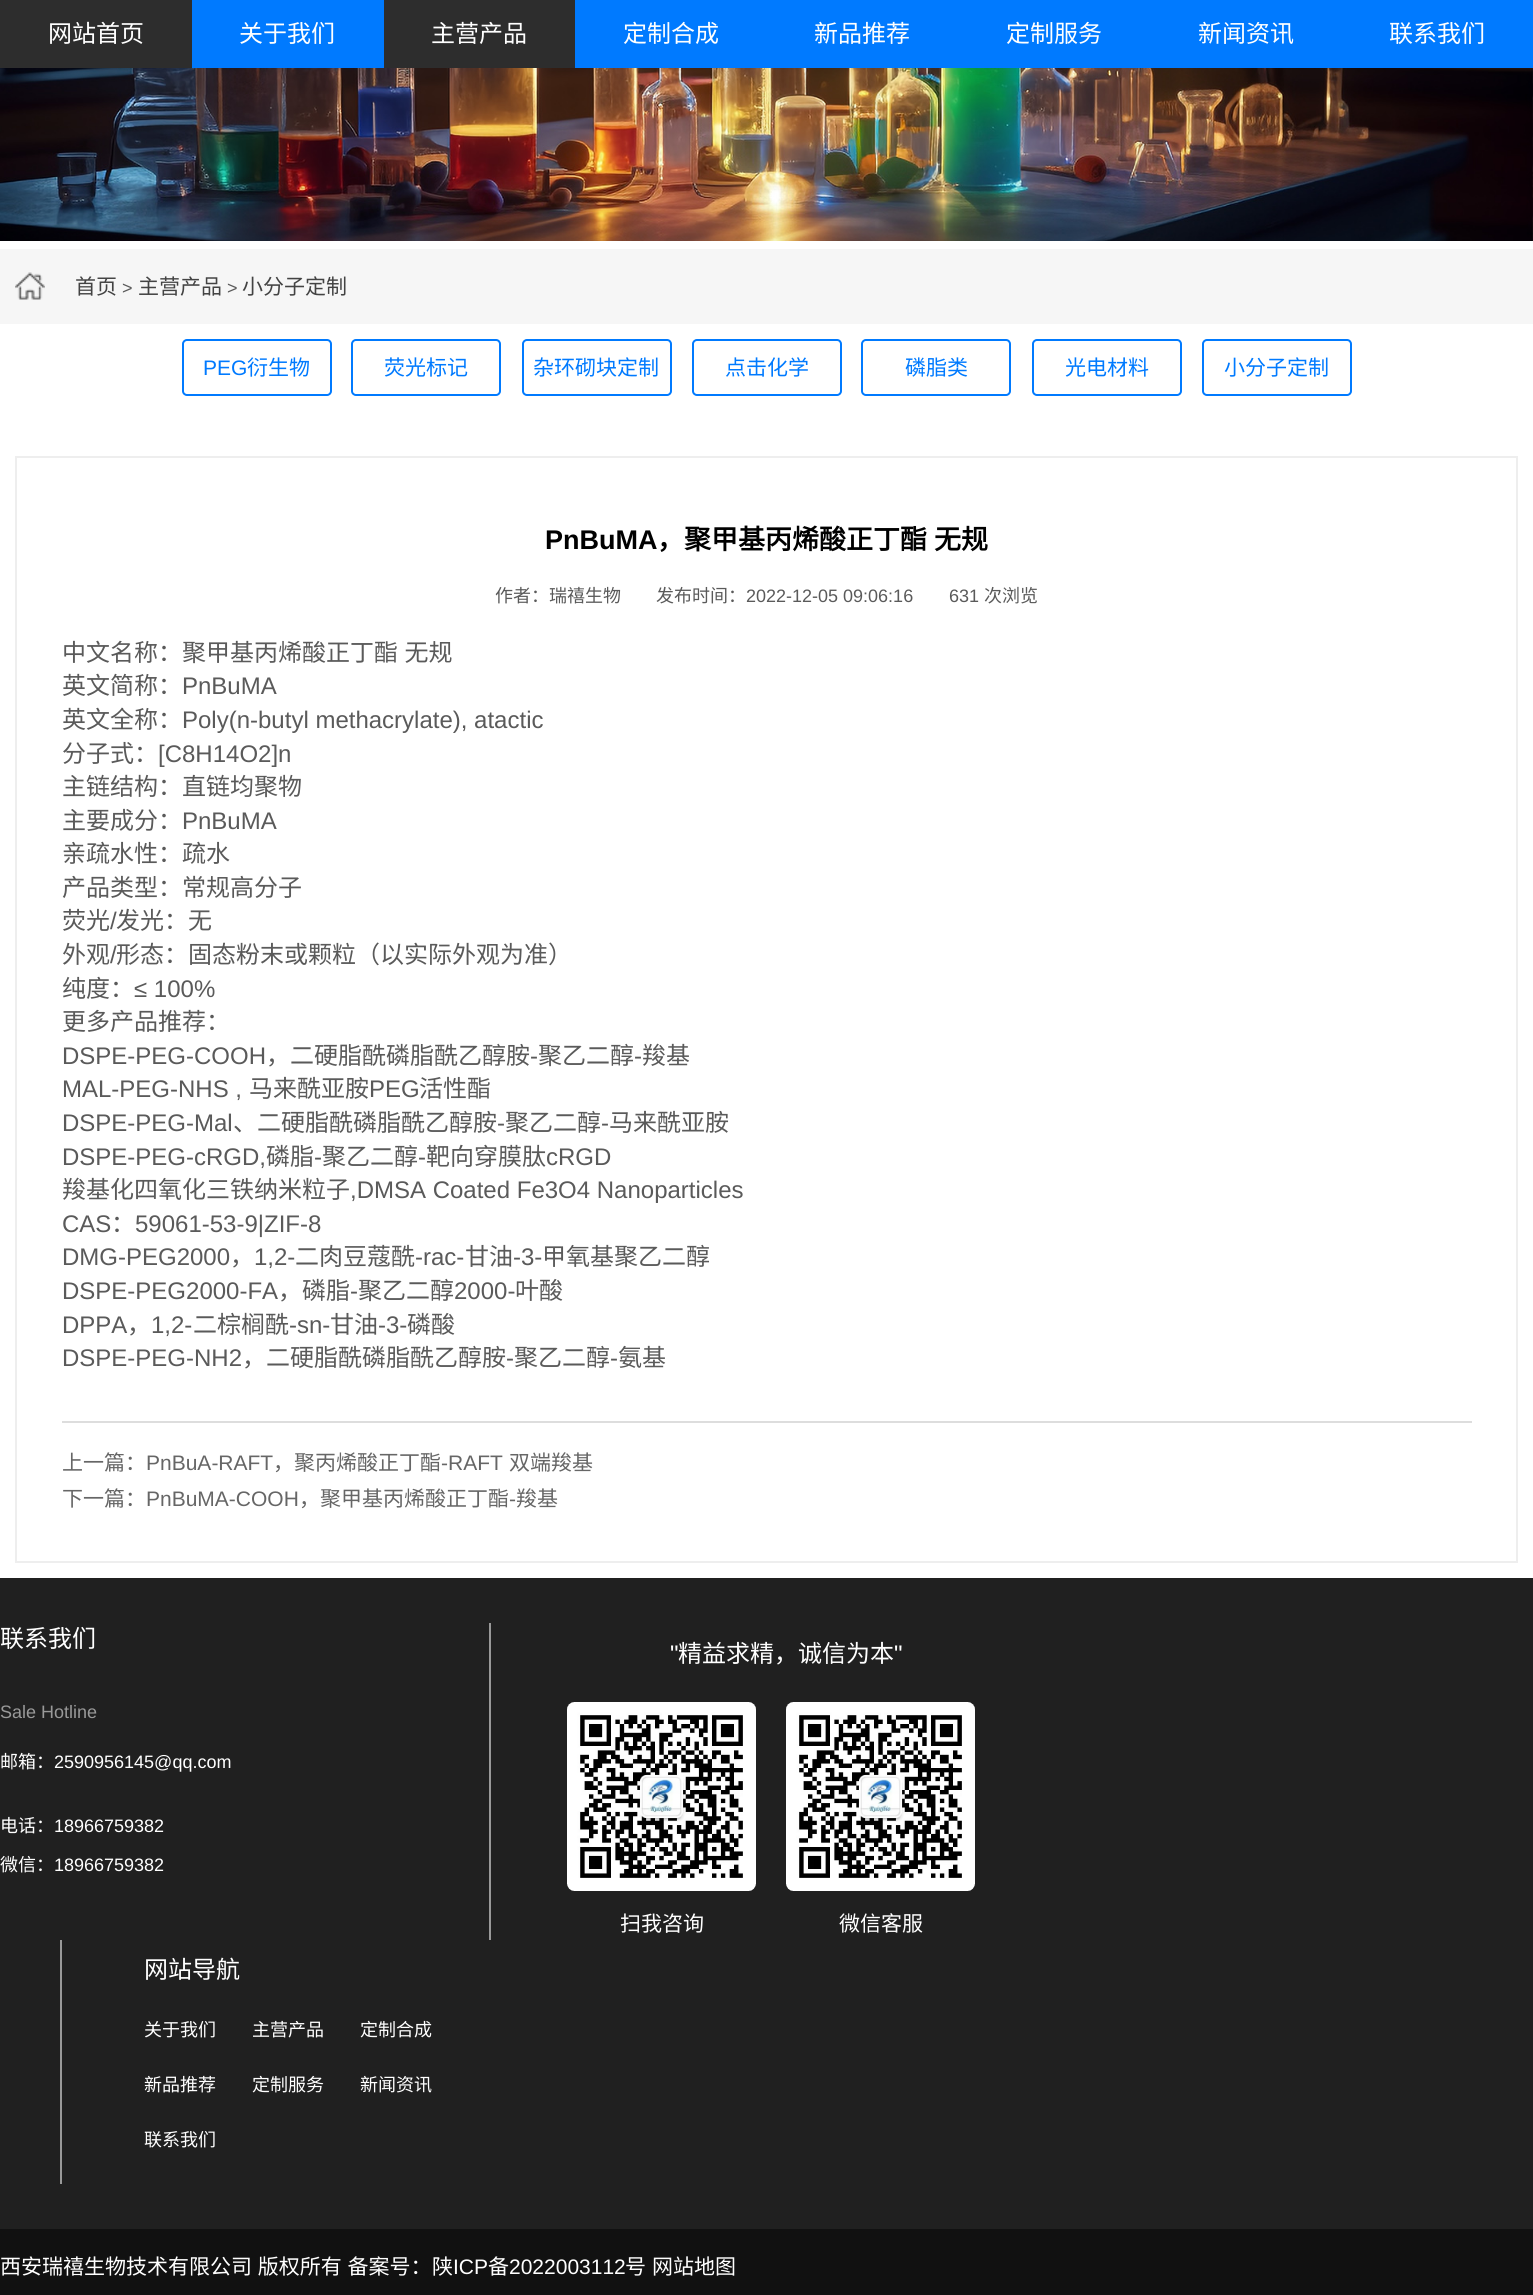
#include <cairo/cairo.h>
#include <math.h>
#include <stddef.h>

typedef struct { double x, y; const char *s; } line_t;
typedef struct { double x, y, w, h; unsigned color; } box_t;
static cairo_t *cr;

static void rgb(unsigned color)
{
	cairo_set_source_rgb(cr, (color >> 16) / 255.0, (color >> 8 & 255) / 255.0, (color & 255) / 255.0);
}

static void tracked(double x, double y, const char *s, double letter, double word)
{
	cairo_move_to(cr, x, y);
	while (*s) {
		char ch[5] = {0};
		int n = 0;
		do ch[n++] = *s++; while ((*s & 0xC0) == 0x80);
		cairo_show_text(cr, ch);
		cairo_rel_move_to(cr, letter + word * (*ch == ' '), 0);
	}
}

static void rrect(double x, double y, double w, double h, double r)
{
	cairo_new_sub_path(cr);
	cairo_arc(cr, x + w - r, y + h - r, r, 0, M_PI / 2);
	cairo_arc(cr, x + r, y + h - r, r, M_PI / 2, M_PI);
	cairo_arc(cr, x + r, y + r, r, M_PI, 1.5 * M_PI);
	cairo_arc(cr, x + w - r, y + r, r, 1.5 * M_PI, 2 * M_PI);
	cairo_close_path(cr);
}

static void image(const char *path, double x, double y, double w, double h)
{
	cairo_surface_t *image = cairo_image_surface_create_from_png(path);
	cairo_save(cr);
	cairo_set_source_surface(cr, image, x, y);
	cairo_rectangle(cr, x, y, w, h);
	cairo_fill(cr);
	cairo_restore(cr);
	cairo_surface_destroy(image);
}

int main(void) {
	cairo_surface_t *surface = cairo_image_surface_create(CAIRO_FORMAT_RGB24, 1533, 2295);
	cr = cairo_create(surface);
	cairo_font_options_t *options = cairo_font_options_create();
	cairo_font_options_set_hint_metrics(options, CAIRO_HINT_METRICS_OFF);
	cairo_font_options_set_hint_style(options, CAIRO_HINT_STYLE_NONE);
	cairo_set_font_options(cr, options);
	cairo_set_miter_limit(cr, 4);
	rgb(0xffffff);
	cairo_paint(cr);
	{
		static const box_t items[] = {
			{192, 0, 1341, 68, 0x007aff},
			{0, 0, 192, 68, 0x2d2d2d},
			{384, 0, 191, 68, 0x2d2d2d},
		};
		for (size_t i = 0; i < sizeof items / sizeof *items; i++) {
			rgb(items[i].color);
			cairo_rectangle(cr, items[i].x, items[i].y, items[i].w, items[i].h);
			cairo_fill(cr);
		}
	}
	image("img/1.png", 0, 68, 1533, 173);
	rgb(0xf6f6f6);
	cairo_rectangle(cr, 0, 249, 1533, 75);
	cairo_fill(cr);
	image("img/2.png", 15, 272, 30, 28);
	rrect(183, 340, 148, 55, 4);
	rgb(0x007aff);
	cairo_stroke(cr);
	rrect(352, 340, 148, 55, 4);
	cairo_stroke(cr);
	rrect(523, 340, 148, 55, 4);
	cairo_stroke(cr);
	rrect(693, 340, 148, 55, 4);
	cairo_stroke(cr);
	rrect(862, 340, 148, 55, 4);
	cairo_stroke(cr);
	rrect(1033, 340, 148, 55, 4);
	cairo_stroke(cr);
	rrect(1203, 340, 148, 55, 4);
	cairo_stroke(cr);
	cairo_rectangle(cr, 16, 457, 1501, 1105);
	rgb(0xeeeeee);
	cairo_stroke(cr);
	{
		static const box_t items[] = {
			{62, 1421, 1410, 2, 0xdddddd},
			{0, 1578, 1533, 651, 0x202020},
			{489, 1623, 2, 317, 0x999999},
		};
		for (size_t i = 0; i < sizeof items / sizeof *items; i++) {
			rgb(items[i].color);
			cairo_rectangle(cr, items[i].x, items[i].y, items[i].w, items[i].h);
			cairo_fill(cr);
		}
	}
	image("img/3.png", 567, 1702, 189, 189);
	image("img/3.png", 786, 1702, 189, 189);
	cairo_rectangle(cr, 60, 1940, 2, 244);
	cairo_fill(cr);
	rgb(0x111111);
	cairo_rectangle(cr, 0, 2229, 1533, 66);
	cairo_fill(cr);
	cairo_select_font_face(cr, "Noto Sans CJK SC", CAIRO_FONT_SLANT_NORMAL, CAIRO_FONT_WEIGHT_NORMAL);
	cairo_set_font_size(cr, 24);
	rgb(0xffffff);
	{
		static const line_t items[] = {
			{48, 42, "网站首页"},
			{239, 42, "关于我们"},
			{431, 42, "主营产品"},
			{623, 42, "定制合成"},
			{814, 42, "新品推荐"},
			{1006, 42, "定制服务"},
			{1198, 42, "新闻资讯"},
			{1389, 42, "联系我们"},
		};
		for (size_t i = 0; i < sizeof items / sizeof *items; i++) {
			cairo_move_to(cr, items[i].x, items[i].y);
			cairo_show_text(cr, items[i].s);
		}
	}
	cairo_set_font_size(cr, 21);
	rgb(0x434343);
	cairo_move_to(cr, 75, 294);
	cairo_show_text(cr, "首页");
	cairo_select_font_face(cr, "Liberation Sans", CAIRO_FONT_SLANT_NORMAL, CAIRO_FONT_WEIGHT_NORMAL);
	cairo_set_font_size(cr, 18);
	rgb(0x5a5a5a);
	cairo_move_to(cr, 122, 294);
	cairo_show_text(cr, ">");
	cairo_select_font_face(cr, "Noto Sans CJK SC", CAIRO_FONT_SLANT_NORMAL, CAIRO_FONT_WEIGHT_NORMAL);
	cairo_set_font_size(cr, 21);
	rgb(0x434343);
	cairo_move_to(cr, 138, 294);
	cairo_show_text(cr, "主营产品");
	cairo_select_font_face(cr, "Liberation Sans", CAIRO_FONT_SLANT_NORMAL, CAIRO_FONT_WEIGHT_NORMAL);
	cairo_set_font_size(cr, 18);
	rgb(0x5a5a5a);
	cairo_move_to(cr, 227, 294);
	cairo_show_text(cr, ">");
	cairo_select_font_face(cr, "Noto Sans CJK SC", CAIRO_FONT_SLANT_NORMAL, CAIRO_FONT_WEIGHT_NORMAL);
	cairo_set_font_size(cr, 21);
	rgb(0x434343);
	cairo_move_to(cr, 242, 294);
	cairo_show_text(cr, "小分子定制");
	cairo_select_font_face(cr, "Liberation Sans", CAIRO_FONT_SLANT_NORMAL, CAIRO_FONT_WEIGHT_NORMAL);
	rgb(0x007aff);
	cairo_move_to(cr, 203, 375);
	cairo_show_text(cr, "PEG");
	cairo_select_font_face(cr, "Noto Sans CJK SC", CAIRO_FONT_SLANT_NORMAL, CAIRO_FONT_WEIGHT_NORMAL);
	{
		static const line_t items[] = {
			{247, 375, "衍生物"},
			{384, 375, "荧光标记"},
			{533, 375, "杂环砌块定制"},
			{725, 375, "点击化学"},
			{905, 375, "磷脂类"},
			{1065, 375, "光电材料"},
			{1224, 375, "小分子定制"},
		};
		for (size_t i = 0; i < sizeof items / sizeof *items; i++) {
			cairo_move_to(cr, items[i].x, items[i].y);
			cairo_show_text(cr, items[i].s);
		}
	}
	cairo_select_font_face(cr, "Liberation Sans", CAIRO_FONT_SLANT_NORMAL, CAIRO_FONT_WEIGHT_BOLD);
	cairo_set_font_size(cr, 27);
	rgb(0x000000);
	cairo_move_to(cr, 545, 549);
	cairo_show_text(cr, "PnBuMA");
	cairo_select_font_face(cr, "Noto Sans CJK SC", CAIRO_FONT_SLANT_NORMAL, CAIRO_FONT_WEIGHT_BOLD);
	tracked(657, 549, "，聚甲基丙烯酸正丁酯 无规", 0, 1);
	cairo_select_font_face(cr, "Noto Sans CJK SC", CAIRO_FONT_SLANT_NORMAL, CAIRO_FONT_WEIGHT_NORMAL);
	cairo_set_font_size(cr, 18);
	rgb(0x5a5a5a);
	cairo_move_to(cr, 495, 602);
	cairo_show_text(cr, "作者：瑞禧生物");
	cairo_move_to(cr, 656, 602);
	cairo_show_text(cr, "发布时间：");
	cairo_select_font_face(cr, "Liberation Sans", CAIRO_FONT_SLANT_NORMAL, CAIRO_FONT_WEIGHT_NORMAL);
	cairo_move_to(cr, 746, 602);
	cairo_show_text(cr, "2022-12-05 09:06:16");
	cairo_move_to(cr, 949, 602);
	cairo_show_text(cr, "631");
	cairo_select_font_face(cr, "Noto Sans CJK SC", CAIRO_FONT_SLANT_NORMAL, CAIRO_FONT_WEIGHT_NORMAL);
	cairo_move_to(cr, 984, 602);
	cairo_show_text(cr, "次浏览");
	cairo_set_font_size(cr, 24);
	tracked(62, 661, "中文名称：聚甲基丙烯酸正丁酯 无规", 0, 1);
	cairo_move_to(cr, 62, 694);
	cairo_show_text(cr, "英文简称：");
	cairo_select_font_face(cr, "Liberation Sans", CAIRO_FONT_SLANT_NORMAL, CAIRO_FONT_WEIGHT_NORMAL);
	cairo_move_to(cr, 182, 694);
	cairo_show_text(cr, "PnBuMA");
	cairo_select_font_face(cr, "Noto Sans CJK SC", CAIRO_FONT_SLANT_NORMAL, CAIRO_FONT_WEIGHT_NORMAL);
	cairo_move_to(cr, 62, 728);
	cairo_show_text(cr, "英文全称：");
	cairo_select_font_face(cr, "Liberation Sans", CAIRO_FONT_SLANT_NORMAL, CAIRO_FONT_WEIGHT_NORMAL);
	cairo_move_to(cr, 182, 728);
	cairo_show_text(cr, "Poly(n-butyl methacrylate), atactic");
	cairo_select_font_face(cr, "Noto Sans CJK SC", CAIRO_FONT_SLANT_NORMAL, CAIRO_FONT_WEIGHT_NORMAL);
	cairo_move_to(cr, 62, 762);
	cairo_show_text(cr, "分子式：");
	cairo_select_font_face(cr, "Liberation Sans", CAIRO_FONT_SLANT_NORMAL, CAIRO_FONT_WEIGHT_NORMAL);
	cairo_move_to(cr, 158, 762);
	cairo_show_text(cr, "[C8H14O2]n");
	cairo_select_font_face(cr, "Noto Sans CJK SC", CAIRO_FONT_SLANT_NORMAL, CAIRO_FONT_WEIGHT_NORMAL);
	cairo_move_to(cr, 62, 795);
	cairo_show_text(cr, "主链结构：直链均聚物");
	cairo_move_to(cr, 62, 829);
	cairo_show_text(cr, "主要成分：");
	cairo_select_font_face(cr, "Liberation Sans", CAIRO_FONT_SLANT_NORMAL, CAIRO_FONT_WEIGHT_NORMAL);
	cairo_move_to(cr, 182, 829);
	cairo_show_text(cr, "PnBuMA");
	cairo_select_font_face(cr, "Noto Sans CJK SC", CAIRO_FONT_SLANT_NORMAL, CAIRO_FONT_WEIGHT_NORMAL);
	{
		static const line_t items[] = {
			{62, 862, "亲疏水性：疏水"},
			{62, 896, "产品类型：常规高分子"},
			{62, 929, "荧光"},
		};
		for (size_t i = 0; i < sizeof items / sizeof *items; i++) {
			cairo_move_to(cr, items[i].x, items[i].y);
			cairo_show_text(cr, items[i].s);
		}
	}
	cairo_select_font_face(cr, "Liberation Sans", CAIRO_FONT_SLANT_NORMAL, CAIRO_FONT_WEIGHT_NORMAL);
	cairo_move_to(cr, 110, 929);
	cairo_show_text(cr, "/");
	cairo_select_font_face(cr, "Noto Sans CJK SC", CAIRO_FONT_SLANT_NORMAL, CAIRO_FONT_WEIGHT_NORMAL);
	cairo_move_to(cr, 116, 929);
	cairo_show_text(cr, "发光：无");
	cairo_move_to(cr, 62, 963);
	cairo_show_text(cr, "外观");
	cairo_select_font_face(cr, "Liberation Sans", CAIRO_FONT_SLANT_NORMAL, CAIRO_FONT_WEIGHT_NORMAL);
	cairo_move_to(cr, 110, 963);
	cairo_show_text(cr, "/");
	cairo_select_font_face(cr, "Noto Sans CJK SC", CAIRO_FONT_SLANT_NORMAL, CAIRO_FONT_WEIGHT_NORMAL);
	cairo_move_to(cr, 116, 963);
	cairo_show_text(cr, "形态：固态粉末或颗粒（以实际外观为准）");
	cairo_move_to(cr, 62, 997);
	cairo_show_text(cr, "纯度：");
	cairo_select_font_face(cr, "Liberation Sans", CAIRO_FONT_SLANT_NORMAL, CAIRO_FONT_WEIGHT_NORMAL);
	cairo_move_to(cr, 134, 997);
	cairo_show_text(cr, "≤ 100%");
	cairo_select_font_face(cr, "Noto Sans CJK SC", CAIRO_FONT_SLANT_NORMAL, CAIRO_FONT_WEIGHT_NORMAL);
	cairo_move_to(cr, 62, 1030);
	cairo_show_text(cr, "更多产品推荐：");
	cairo_select_font_face(cr, "Liberation Sans", CAIRO_FONT_SLANT_NORMAL, CAIRO_FONT_WEIGHT_NORMAL);
	cairo_move_to(cr, 62, 1064);
	cairo_show_text(cr, "DSPE-PEG-COOH");
	cairo_select_font_face(cr, "Noto Sans CJK SC", CAIRO_FONT_SLANT_NORMAL, CAIRO_FONT_WEIGHT_NORMAL);
	cairo_move_to(cr, 266, 1064);
	cairo_show_text(cr, "，二硬脂酰磷脂酰乙醇胺");
	cairo_select_font_face(cr, "Liberation Sans", CAIRO_FONT_SLANT_NORMAL, CAIRO_FONT_WEIGHT_NORMAL);
	cairo_move_to(cr, 530, 1064);
	cairo_show_text(cr, "-");
	cairo_select_font_face(cr, "Noto Sans CJK SC", CAIRO_FONT_SLANT_NORMAL, CAIRO_FONT_WEIGHT_NORMAL);
	cairo_move_to(cr, 538, 1064);
	cairo_show_text(cr, "聚乙二醇");
	cairo_select_font_face(cr, "Liberation Sans", CAIRO_FONT_SLANT_NORMAL, CAIRO_FONT_WEIGHT_NORMAL);
	cairo_move_to(cr, 634, 1064);
	cairo_show_text(cr, "-");
	cairo_select_font_face(cr, "Noto Sans CJK SC", CAIRO_FONT_SLANT_NORMAL, CAIRO_FONT_WEIGHT_NORMAL);
	cairo_move_to(cr, 642, 1064);
	cairo_show_text(cr, "羧基");
	cairo_select_font_face(cr, "Liberation Sans", CAIRO_FONT_SLANT_NORMAL, CAIRO_FONT_WEIGHT_NORMAL);
	cairo_move_to(cr, 62, 1097);
	cairo_show_text(cr, "MAL-PEG-NHS ,");
	cairo_select_font_face(cr, "Noto Sans CJK SC", CAIRO_FONT_SLANT_NORMAL, CAIRO_FONT_WEIGHT_NORMAL);
	cairo_move_to(cr, 249, 1097);
	cairo_show_text(cr, "马来酰亚胺");
	cairo_select_font_face(cr, "Liberation Sans", CAIRO_FONT_SLANT_NORMAL, CAIRO_FONT_WEIGHT_NORMAL);
	cairo_move_to(cr, 369, 1097);
	cairo_show_text(cr, "PEG");
	cairo_select_font_face(cr, "Noto Sans CJK SC", CAIRO_FONT_SLANT_NORMAL, CAIRO_FONT_WEIGHT_NORMAL);
	cairo_move_to(cr, 419, 1097);
	cairo_show_text(cr, "活性酯");
	cairo_select_font_face(cr, "Liberation Sans", CAIRO_FONT_SLANT_NORMAL, CAIRO_FONT_WEIGHT_NORMAL);
	cairo_move_to(cr, 62, 1131);
	cairo_show_text(cr, "DSPE-PEG-Mal");
	cairo_select_font_face(cr, "Noto Sans CJK SC", CAIRO_FONT_SLANT_NORMAL, CAIRO_FONT_WEIGHT_NORMAL);
	cairo_move_to(cr, 233, 1131);
	cairo_show_text(cr, "、二硬脂酰磷脂酰乙醇胺");
	cairo_select_font_face(cr, "Liberation Sans", CAIRO_FONT_SLANT_NORMAL, CAIRO_FONT_WEIGHT_NORMAL);
	cairo_move_to(cr, 497, 1131);
	cairo_show_text(cr, "-");
	cairo_select_font_face(cr, "Noto Sans CJK SC", CAIRO_FONT_SLANT_NORMAL, CAIRO_FONT_WEIGHT_NORMAL);
	cairo_move_to(cr, 505, 1131);
	cairo_show_text(cr, "聚乙二醇");
	cairo_select_font_face(cr, "Liberation Sans", CAIRO_FONT_SLANT_NORMAL, CAIRO_FONT_WEIGHT_NORMAL);
	cairo_move_to(cr, 601, 1131);
	cairo_show_text(cr, "-");
	cairo_select_font_face(cr, "Noto Sans CJK SC", CAIRO_FONT_SLANT_NORMAL, CAIRO_FONT_WEIGHT_NORMAL);
	cairo_move_to(cr, 609, 1131);
	cairo_show_text(cr, "马来酰亚胺");
	cairo_select_font_face(cr, "Liberation Sans", CAIRO_FONT_SLANT_NORMAL, CAIRO_FONT_WEIGHT_NORMAL);
	cairo_move_to(cr, 62, 1165);
	cairo_show_text(cr, "DSPE-PEG-cRGD,");
	cairo_select_font_face(cr, "Noto Sans CJK SC", CAIRO_FONT_SLANT_NORMAL, CAIRO_FONT_WEIGHT_NORMAL);
	cairo_move_to(cr, 266, 1165);
	cairo_show_text(cr, "磷脂");
	cairo_select_font_face(cr, "Liberation Sans", CAIRO_FONT_SLANT_NORMAL, CAIRO_FONT_WEIGHT_NORMAL);
	cairo_move_to(cr, 314, 1165);
	cairo_show_text(cr, "-");
	cairo_select_font_face(cr, "Noto Sans CJK SC", CAIRO_FONT_SLANT_NORMAL, CAIRO_FONT_WEIGHT_NORMAL);
	cairo_move_to(cr, 322, 1165);
	cairo_show_text(cr, "聚乙二醇");
	cairo_select_font_face(cr, "Liberation Sans", CAIRO_FONT_SLANT_NORMAL, CAIRO_FONT_WEIGHT_NORMAL);
	cairo_move_to(cr, 418, 1165);
	cairo_show_text(cr, "-");
	cairo_select_font_face(cr, "Noto Sans CJK SC", CAIRO_FONT_SLANT_NORMAL, CAIRO_FONT_WEIGHT_NORMAL);
	cairo_move_to(cr, 426, 1165);
	cairo_show_text(cr, "靶向穿膜肽");
	cairo_select_font_face(cr, "Liberation Sans", CAIRO_FONT_SLANT_NORMAL, CAIRO_FONT_WEIGHT_NORMAL);
	cairo_move_to(cr, 546, 1165);
	cairo_show_text(cr, "cRGD");
	cairo_select_font_face(cr, "Noto Sans CJK SC", CAIRO_FONT_SLANT_NORMAL, CAIRO_FONT_WEIGHT_NORMAL);
	cairo_move_to(cr, 62, 1198);
	cairo_show_text(cr, "羧基化四氧化三铁纳米粒子");
	cairo_select_font_face(cr, "Liberation Sans", CAIRO_FONT_SLANT_NORMAL, CAIRO_FONT_WEIGHT_NORMAL);
	cairo_move_to(cr, 350, 1198);
	cairo_show_text(cr, ",DMSA Coated Fe3O4 Nanoparticles");
	cairo_move_to(cr, 62, 1232);
	cairo_show_text(cr, "CAS");
	cairo_select_font_face(cr, "Noto Sans CJK SC", CAIRO_FONT_SLANT_NORMAL, CAIRO_FONT_WEIGHT_NORMAL);
	cairo_move_to(cr, 111, 1232);
	cairo_show_text(cr, "：");
	cairo_select_font_face(cr, "Liberation Sans", CAIRO_FONT_SLANT_NORMAL, CAIRO_FONT_WEIGHT_NORMAL);
	cairo_move_to(cr, 135, 1232);
	cairo_show_text(cr, "59061-53-9|ZIF-8");
	cairo_move_to(cr, 62, 1265);
	cairo_show_text(cr, "DMG-PEG2000");
	cairo_select_font_face(cr, "Noto Sans CJK SC", CAIRO_FONT_SLANT_NORMAL, CAIRO_FONT_WEIGHT_NORMAL);
	cairo_move_to(cr, 230, 1265);
	cairo_show_text(cr, "，");
	cairo_select_font_face(cr, "Liberation Sans", CAIRO_FONT_SLANT_NORMAL, CAIRO_FONT_WEIGHT_NORMAL);
	cairo_move_to(cr, 254, 1265);
	cairo_show_text(cr, "1,2-");
	cairo_select_font_face(cr, "Noto Sans CJK SC", CAIRO_FONT_SLANT_NORMAL, CAIRO_FONT_WEIGHT_NORMAL);
	cairo_move_to(cr, 295, 1265);
	cairo_show_text(cr, "二肉豆蔻酰");
	cairo_select_font_face(cr, "Liberation Sans", CAIRO_FONT_SLANT_NORMAL, CAIRO_FONT_WEIGHT_NORMAL);
	cairo_move_to(cr, 415, 1265);
	cairo_show_text(cr, "-rac-");
	cairo_select_font_face(cr, "Noto Sans CJK SC", CAIRO_FONT_SLANT_NORMAL, CAIRO_FONT_WEIGHT_NORMAL);
	cairo_move_to(cr, 465, 1265);
	cairo_show_text(cr, "甘油");
	cairo_select_font_face(cr, "Liberation Sans", CAIRO_FONT_SLANT_NORMAL, CAIRO_FONT_WEIGHT_NORMAL);
	cairo_move_to(cr, 513, 1265);
	cairo_show_text(cr, "-3-");
	cairo_select_font_face(cr, "Noto Sans CJK SC", CAIRO_FONT_SLANT_NORMAL, CAIRO_FONT_WEIGHT_NORMAL);
	cairo_move_to(cr, 542, 1265);
	cairo_show_text(cr, "甲氧基聚乙二醇");
	cairo_select_font_face(cr, "Liberation Sans", CAIRO_FONT_SLANT_NORMAL, CAIRO_FONT_WEIGHT_NORMAL);
	cairo_move_to(cr, 62, 1299);
	cairo_show_text(cr, "DSPE-PEG2000-FA");
	cairo_select_font_face(cr, "Noto Sans CJK SC", CAIRO_FONT_SLANT_NORMAL, CAIRO_FONT_WEIGHT_NORMAL);
	cairo_move_to(cr, 278, 1299);
	cairo_show_text(cr, "，磷脂");
	cairo_select_font_face(cr, "Liberation Sans", CAIRO_FONT_SLANT_NORMAL, CAIRO_FONT_WEIGHT_NORMAL);
	cairo_move_to(cr, 350, 1299);
	cairo_show_text(cr, "-");
	cairo_select_font_face(cr, "Noto Sans CJK SC", CAIRO_FONT_SLANT_NORMAL, CAIRO_FONT_WEIGHT_NORMAL);
	cairo_move_to(cr, 358, 1299);
	cairo_show_text(cr, "聚乙二醇");
	cairo_select_font_face(cr, "Liberation Sans", CAIRO_FONT_SLANT_NORMAL, CAIRO_FONT_WEIGHT_NORMAL);
	cairo_move_to(cr, 454, 1299);
	cairo_show_text(cr, "2000-");
	cairo_select_font_face(cr, "Noto Sans CJK SC", CAIRO_FONT_SLANT_NORMAL, CAIRO_FONT_WEIGHT_NORMAL);
	cairo_move_to(cr, 515, 1299);
	cairo_show_text(cr, "叶酸");
	cairo_select_font_face(cr, "Liberation Sans", CAIRO_FONT_SLANT_NORMAL, CAIRO_FONT_WEIGHT_NORMAL);
	cairo_move_to(cr, 62, 1333);
	cairo_show_text(cr, "DPPA");
	cairo_select_font_face(cr, "Noto Sans CJK SC", CAIRO_FONT_SLANT_NORMAL, CAIRO_FONT_WEIGHT_NORMAL);
	cairo_move_to(cr, 127, 1333);
	cairo_show_text(cr, "，");
	cairo_select_font_face(cr, "Liberation Sans", CAIRO_FONT_SLANT_NORMAL, CAIRO_FONT_WEIGHT_NORMAL);
	cairo_move_to(cr, 151, 1333);
	cairo_show_text(cr, "1,2-");
	cairo_select_font_face(cr, "Noto Sans CJK SC", CAIRO_FONT_SLANT_NORMAL, CAIRO_FONT_WEIGHT_NORMAL);
	cairo_move_to(cr, 193, 1333);
	cairo_show_text(cr, "二棕榈酰");
	cairo_select_font_face(cr, "Liberation Sans", CAIRO_FONT_SLANT_NORMAL, CAIRO_FONT_WEIGHT_NORMAL);
	cairo_move_to(cr, 289, 1333);
	cairo_show_text(cr, "-sn-");
	cairo_select_font_face(cr, "Noto Sans CJK SC", CAIRO_FONT_SLANT_NORMAL, CAIRO_FONT_WEIGHT_NORMAL);
	cairo_move_to(cr, 330, 1333);
	cairo_show_text(cr, "甘油");
	cairo_select_font_face(cr, "Liberation Sans", CAIRO_FONT_SLANT_NORMAL, CAIRO_FONT_WEIGHT_NORMAL);
	cairo_move_to(cr, 378, 1333);
	cairo_show_text(cr, "-3-");
	cairo_select_font_face(cr, "Noto Sans CJK SC", CAIRO_FONT_SLANT_NORMAL, CAIRO_FONT_WEIGHT_NORMAL);
	cairo_move_to(cr, 407, 1333);
	cairo_show_text(cr, "磷酸");
	cairo_select_font_face(cr, "Liberation Sans", CAIRO_FONT_SLANT_NORMAL, CAIRO_FONT_WEIGHT_NORMAL);
	cairo_move_to(cr, 62, 1366);
	cairo_show_text(cr, "DSPE-PEG-NH2");
	cairo_select_font_face(cr, "Noto Sans CJK SC", CAIRO_FONT_SLANT_NORMAL, CAIRO_FONT_WEIGHT_NORMAL);
	cairo_move_to(cr, 242, 1366);
	cairo_show_text(cr, "，二硬脂酰磷脂酰乙醇胺");
	cairo_select_font_face(cr, "Liberation Sans", CAIRO_FONT_SLANT_NORMAL, CAIRO_FONT_WEIGHT_NORMAL);
	cairo_move_to(cr, 506, 1366);
	cairo_show_text(cr, "-");
	cairo_select_font_face(cr, "Noto Sans CJK SC", CAIRO_FONT_SLANT_NORMAL, CAIRO_FONT_WEIGHT_NORMAL);
	cairo_move_to(cr, 514, 1366);
	cairo_show_text(cr, "聚乙二醇");
	cairo_select_font_face(cr, "Liberation Sans", CAIRO_FONT_SLANT_NORMAL, CAIRO_FONT_WEIGHT_NORMAL);
	cairo_move_to(cr, 610, 1366);
	cairo_show_text(cr, "-");
	cairo_select_font_face(cr, "Noto Sans CJK SC", CAIRO_FONT_SLANT_NORMAL, CAIRO_FONT_WEIGHT_NORMAL);
	cairo_move_to(cr, 618, 1366);
	cairo_show_text(cr, "氨基");
	cairo_set_font_size(cr, 21);
	rgb(0x666666);
	cairo_move_to(cr, 62, 1470);
	cairo_show_text(cr, "上一篇：");
	cairo_select_font_face(cr, "Liberation Sans", CAIRO_FONT_SLANT_NORMAL, CAIRO_FONT_WEIGHT_NORMAL);
	cairo_move_to(cr, 146, 1470);
	cairo_show_text(cr, "PnBuA-RAFT");
	cairo_select_font_face(cr, "Noto Sans CJK SC", CAIRO_FONT_SLANT_NORMAL, CAIRO_FONT_WEIGHT_NORMAL);
	cairo_move_to(cr, 273, 1470);
	cairo_show_text(cr, "，聚丙烯酸正丁酯");
	cairo_select_font_face(cr, "Liberation Sans", CAIRO_FONT_SLANT_NORMAL, CAIRO_FONT_WEIGHT_NORMAL);
	cairo_move_to(cr, 441, 1470);
	cairo_show_text(cr, "-RAFT");
	cairo_select_font_face(cr, "Noto Sans CJK SC", CAIRO_FONT_SLANT_NORMAL, CAIRO_FONT_WEIGHT_NORMAL);
	cairo_move_to(cr, 509, 1470);
	cairo_show_text(cr, "双端羧基");
	cairo_move_to(cr, 62, 1506);
	cairo_show_text(cr, "下一篇：");
	cairo_select_font_face(cr, "Liberation Sans", CAIRO_FONT_SLANT_NORMAL, CAIRO_FONT_WEIGHT_NORMAL);
	cairo_move_to(cr, 146, 1506);
	cairo_show_text(cr, "PnBuMA-COOH");
	cairo_select_font_face(cr, "Noto Sans CJK SC", CAIRO_FONT_SLANT_NORMAL, CAIRO_FONT_WEIGHT_NORMAL);
	cairo_move_to(cr, 299, 1506);
	cairo_show_text(cr, "，聚甲基丙烯酸正丁酯");
	cairo_select_font_face(cr, "Liberation Sans", CAIRO_FONT_SLANT_NORMAL, CAIRO_FONT_WEIGHT_NORMAL);
	cairo_move_to(cr, 509, 1506);
	cairo_show_text(cr, "-");
	cairo_select_font_face(cr, "Noto Sans CJK SC", CAIRO_FONT_SLANT_NORMAL, CAIRO_FONT_WEIGHT_NORMAL);
	cairo_move_to(cr, 516, 1506);
	cairo_show_text(cr, "羧基");
	cairo_set_font_size(cr, 24);
	rgb(0xffffff);
	cairo_move_to(cr, 0, 1647);
	cairo_show_text(cr, "联系我们");
	cairo_select_font_face(cr, "Liberation Sans", CAIRO_FONT_SLANT_NORMAL, CAIRO_FONT_WEIGHT_NORMAL);
	cairo_set_font_size(cr, 18);
	rgb(0x999999);
	cairo_move_to(cr, 0, 1718);
	cairo_show_text(cr, "Sale Hotline");
	cairo_select_font_face(cr, "Noto Sans CJK SC", CAIRO_FONT_SLANT_NORMAL, CAIRO_FONT_WEIGHT_NORMAL);
	rgb(0xffffff);
	cairo_move_to(cr, 0, 1768);
	cairo_show_text(cr, "邮箱：");
	cairo_select_font_face(cr, "Liberation Sans", CAIRO_FONT_SLANT_NORMAL, CAIRO_FONT_WEIGHT_NORMAL);
	cairo_move_to(cr, 54, 1768);
	cairo_show_text(cr, "2590956145@qq.com");
	cairo_select_font_face(cr, "Noto Sans CJK SC", CAIRO_FONT_SLANT_NORMAL, CAIRO_FONT_WEIGHT_NORMAL);
	cairo_move_to(cr, 0, 1832);
	cairo_show_text(cr, "电话：");
	cairo_select_font_face(cr, "Liberation Sans", CAIRO_FONT_SLANT_NORMAL, CAIRO_FONT_WEIGHT_NORMAL);
	cairo_move_to(cr, 54, 1832);
	cairo_show_text(cr, "18966759382");
	cairo_select_font_face(cr, "Noto Sans CJK SC", CAIRO_FONT_SLANT_NORMAL, CAIRO_FONT_WEIGHT_NORMAL);
	cairo_move_to(cr, 0, 1871);
	cairo_show_text(cr, "微信：");
	cairo_select_font_face(cr, "Liberation Sans", CAIRO_FONT_SLANT_NORMAL, CAIRO_FONT_WEIGHT_NORMAL);
	cairo_move_to(cr, 54, 1871);
	cairo_show_text(cr, "18966759382");
	cairo_set_font_size(cr, 24);
	cairo_move_to(cr, 670, 1662);
	cairo_show_text(cr, "\"");
	cairo_select_font_face(cr, "Noto Sans CJK SC", CAIRO_FONT_SLANT_NORMAL, CAIRO_FONT_WEIGHT_NORMAL);
	cairo_move_to(cr, 678, 1662);
	cairo_show_text(cr, "精益求精，诚信为本");
	cairo_select_font_face(cr, "Liberation Sans", CAIRO_FONT_SLANT_NORMAL, CAIRO_FONT_WEIGHT_NORMAL);
	cairo_move_to(cr, 894, 1662);
	cairo_show_text(cr, "\"");
	cairo_select_font_face(cr, "Noto Sans CJK SC", CAIRO_FONT_SLANT_NORMAL, CAIRO_FONT_WEIGHT_NORMAL);
	cairo_set_font_size(cr, 21);
	cairo_move_to(cr, 620, 1931);
	cairo_show_text(cr, "扫我咨询");
	cairo_move_to(cr, 839, 1931);
	cairo_show_text(cr, "微信客服");
	cairo_set_font_size(cr, 24);
	cairo_move_to(cr, 144, 1978);
	cairo_show_text(cr, "网站导航");
	cairo_set_font_size(cr, 18);
	{
		static const line_t items[] = {
			{144, 2036, "关于我们"},
			{252, 2036, "主营产品"},
			{360, 2036, "定制合成"},
			{144, 2091, "新品推荐"},
			{252, 2091, "定制服务"},
			{360, 2091, "新闻资讯"},
			{144, 2146, "联系我们"},
		};
		for (size_t i = 0; i < sizeof items / sizeof *items; i++) {
			cairo_move_to(cr, items[i].x, items[i].y);
			cairo_show_text(cr, items[i].s);
		}
	}
	cairo_set_font_size(cr, 21);
	tracked(0, 2274, "西安瑞禧生物技术有限公司 版权所有 备案号：", 0, 1);
	cairo_move_to(cr, 432, 2274);
	cairo_show_text(cr, "陕");
	cairo_select_font_face(cr, "Liberation Sans", CAIRO_FONT_SLANT_NORMAL, CAIRO_FONT_WEIGHT_NORMAL);
	cairo_move_to(cr, 453, 2274);
	cairo_show_text(cr, "ICP");
	cairo_select_font_face(cr, "Noto Sans CJK SC", CAIRO_FONT_SLANT_NORMAL, CAIRO_FONT_WEIGHT_NORMAL);
	cairo_move_to(cr, 488, 2274);
	cairo_show_text(cr, "备");
	cairo_select_font_face(cr, "Liberation Sans", CAIRO_FONT_SLANT_NORMAL, CAIRO_FONT_WEIGHT_NORMAL);
	cairo_move_to(cr, 509, 2274);
	cairo_show_text(cr, "2022003112");
	cairo_select_font_face(cr, "Noto Sans CJK SC", CAIRO_FONT_SLANT_NORMAL, CAIRO_FONT_WEIGHT_NORMAL);
	cairo_move_to(cr, 625, 2274);
	cairo_show_text(cr, "号");
	cairo_move_to(cr, 652, 2274);
	cairo_show_text(cr, "网站地图");
	cairo_surface_write_to_png(surface, "page.png");
	cairo_font_options_destroy(options);
	cairo_destroy(cr);
	cairo_surface_destroy(surface);
	return 0;
}
